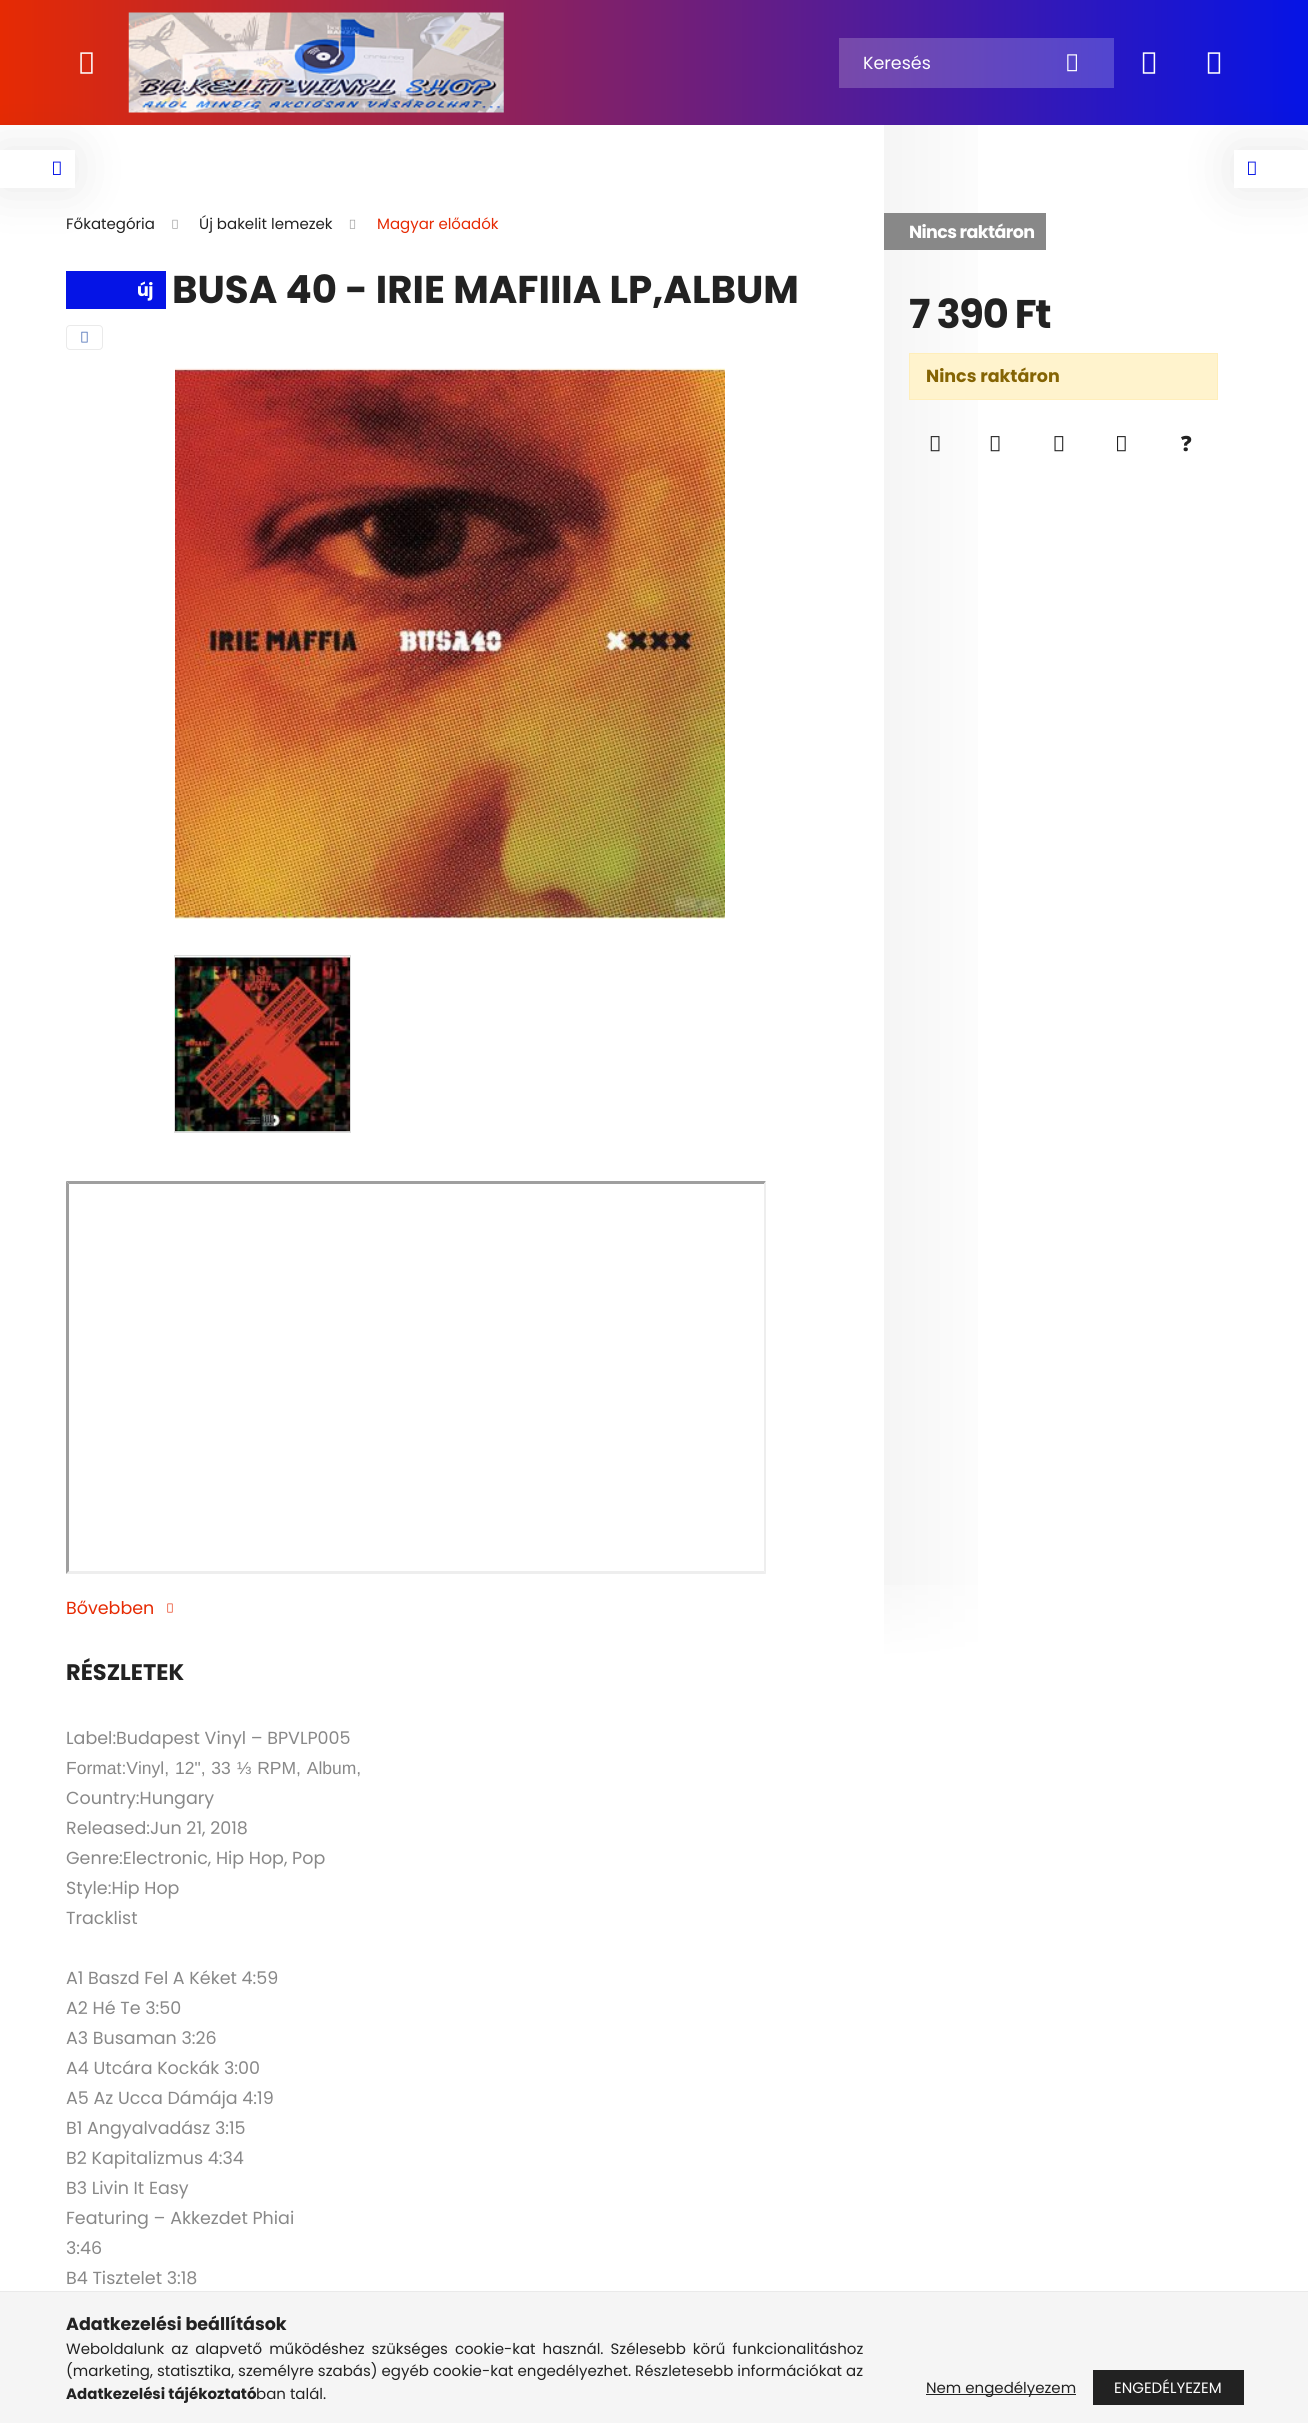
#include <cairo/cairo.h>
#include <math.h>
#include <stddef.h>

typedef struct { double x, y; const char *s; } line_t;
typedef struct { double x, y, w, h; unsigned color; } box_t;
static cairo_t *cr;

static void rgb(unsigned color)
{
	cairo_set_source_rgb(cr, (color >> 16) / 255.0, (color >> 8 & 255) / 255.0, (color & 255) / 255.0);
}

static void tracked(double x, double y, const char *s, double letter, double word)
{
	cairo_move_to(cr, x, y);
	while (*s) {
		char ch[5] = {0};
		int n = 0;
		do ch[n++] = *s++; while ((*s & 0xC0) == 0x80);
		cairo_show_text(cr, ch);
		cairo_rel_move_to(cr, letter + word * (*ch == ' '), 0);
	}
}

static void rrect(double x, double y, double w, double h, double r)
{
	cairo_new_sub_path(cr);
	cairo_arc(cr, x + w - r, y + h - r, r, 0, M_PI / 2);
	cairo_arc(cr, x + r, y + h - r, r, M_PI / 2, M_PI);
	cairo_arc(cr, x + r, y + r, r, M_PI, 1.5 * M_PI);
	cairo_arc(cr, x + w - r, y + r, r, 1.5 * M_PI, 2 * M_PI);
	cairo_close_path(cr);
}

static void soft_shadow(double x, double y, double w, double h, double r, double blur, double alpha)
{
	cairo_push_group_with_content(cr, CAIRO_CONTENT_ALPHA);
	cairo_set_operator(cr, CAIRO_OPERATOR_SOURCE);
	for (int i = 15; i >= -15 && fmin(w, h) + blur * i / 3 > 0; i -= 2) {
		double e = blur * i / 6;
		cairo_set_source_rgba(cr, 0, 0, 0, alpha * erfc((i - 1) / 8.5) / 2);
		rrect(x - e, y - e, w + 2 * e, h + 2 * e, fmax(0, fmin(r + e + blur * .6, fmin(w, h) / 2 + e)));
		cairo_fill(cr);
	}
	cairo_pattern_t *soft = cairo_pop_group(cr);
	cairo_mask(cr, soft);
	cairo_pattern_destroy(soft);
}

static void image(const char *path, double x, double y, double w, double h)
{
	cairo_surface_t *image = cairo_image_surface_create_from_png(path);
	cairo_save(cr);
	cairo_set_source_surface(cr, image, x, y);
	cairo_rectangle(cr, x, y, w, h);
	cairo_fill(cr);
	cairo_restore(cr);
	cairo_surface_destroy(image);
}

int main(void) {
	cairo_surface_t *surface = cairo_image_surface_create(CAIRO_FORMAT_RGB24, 1308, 2423);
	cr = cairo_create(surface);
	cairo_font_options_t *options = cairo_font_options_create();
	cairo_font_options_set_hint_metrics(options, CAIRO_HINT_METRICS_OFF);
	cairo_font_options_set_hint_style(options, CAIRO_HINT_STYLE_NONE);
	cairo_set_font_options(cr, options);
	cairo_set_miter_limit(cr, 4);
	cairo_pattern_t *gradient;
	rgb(0xffffff);
	cairo_paint(cr);
	gradient = cairo_pattern_create_linear(0, 63, 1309, 62);
	cairo_pattern_add_color_stop_rgba(gradient, 0, 0.902, 0.165, 0.012, 1);
	cairo_pattern_add_color_stop_rgba(gradient, 1, 0.02, 0.078, 0.902, 1);
	cairo_set_source(cr, gradient);
	cairo_pattern_destroy(gradient);
	cairo_rectangle(cr, 0, 0, 1308, 125);
	cairo_fill(cr);
	gradient = cairo_pattern_create_linear(0, 63, 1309, 62);
	cairo_pattern_add_color_stop_rgba(gradient, 0, 0.922, 0.333, 0.208, 1);
	cairo_pattern_add_color_stop_rgba(gradient, 1, 0.216, 0.263, 0.922, 1);
	cairo_set_source(cr, gradient);
	cairo_pattern_destroy(gradient);
	cairo_rectangle(cr, 839, 38, 275, 50);
	cairo_fill(cr);
	image("img/1.png", 80, 52, 13, 22);
	image("img/2.png", 128, 12, 376, 101);
	image("img/3.png", 1067, 54, 10, 18);
	image("img/4.png", 1142, 52, 14, 22);
	image("img/5.png", 1207, 52, 14, 22);
	rgb(0x000000);
	soft_shadow(0, 150, 75, 38, 0, 25, 0.1);
	rgb(0xffffff);
	cairo_rectangle(cr, 0, 150, 75, 38);
	cairo_fill(cr);
	image("img/6.png", 53, 161, 8, 14);
	rgb(0x000000);
	soft_shadow(1234, 150, 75, 38, 0, 25, 0.1);
	rgb(0xffffff);
	cairo_rectangle(cr, 1234, 150, 74, 38);
	cairo_fill(cr);
	image("img/6.png", 1248, 161, 8, 14);
	image("img/7.png", 172, 219, 6, 10);
	image("img/8.png", 349, 219, 7, 10);
	rgb(0x0514e6);
	cairo_rectangle(cr, 66, 271, 100, 38);
	cairo_fill(cr);
	rrect(66.5, 325.5, 36, 24, 3.5);
	rgb(0xeaeaea);
	cairo_set_line_width(cr, 1);
	cairo_stroke(cr);
	image("img/9.png", 81, 331, 7, 12);
	image("img/10.png", 175, 368, 550, 551);
	cairo_rectangle(cr, 174.5, 955.5, 176, 177);
	rgb(0xdddddd);
	cairo_stroke(cr);
	image("img/11.png", 175, 956, 175, 176);
	rgb(0x9f9f9f);
	cairo_new_path(cr);
	cairo_move_to(cr, 66, 1181);
	cairo_line_to(cr, 766, 1181);
	cairo_line_to(cr, 764, 1184);
	cairo_line_to(cr, 69, 1184);
	cairo_close_path(cr);
	cairo_fill(cr);
	rgb(0xeeeeee);
	cairo_new_path(cr);
	cairo_move_to(cr, 766, 1181);
	cairo_line_to(cr, 766, 1574);
	cairo_line_to(cr, 764, 1571);
	cairo_line_to(cr, 764, 1184);
	cairo_close_path(cr);
	cairo_fill(cr);
	cairo_new_path(cr);
	cairo_move_to(cr, 766, 1574);
	cairo_line_to(cr, 66, 1574);
	cairo_line_to(cr, 69, 1571);
	cairo_line_to(cr, 764, 1571);
	cairo_close_path(cr);
	cairo_fill(cr);
	rgb(0x9f9f9f);
	cairo_new_path(cr);
	cairo_move_to(cr, 66, 1574);
	cairo_line_to(cr, 66, 1181);
	cairo_line_to(cr, 69, 1184);
	cairo_line_to(cr, 69, 1571);
	cairo_close_path(cr);
	cairo_fill(cr);
	image("img/12.png", 167, 1603, 6, 10);
	gradient = cairo_pattern_create_linear(884, 892, 1243, 892);
	cairo_pattern_add_color_stop_rgba(gradient, 0, 0.961, 0.961, 0.961, 1);
	cairo_pattern_add_color_stop_rgba(gradient, 0.35, 1, 1, 1, 1);
	cairo_pattern_add_color_stop_rgba(gradient, 1, 1, 1, 1, 1);
	cairo_set_source(cr, gradient);
	cairo_pattern_destroy(gradient);
	cairo_rectangle(cr, 884, 125, 94, 1533);
	cairo_fill(cr);
	rgb(0x888888);
	cairo_rectangle(cr, 884, 213, 162, 37);
	cairo_fill(cr);
	rgb(0xfff3cd);
	cairo_rectangle(cr, 909.5, 353.5, 308, 46);
	cairo_fill_preserve(cr);
	rgb(0xffeeba);
	cairo_stroke(cr);
	image("img/13.png", 930, 436, 10, 16);
	image("img/14.png", 990, 436, 10, 16);
	image("img/15.png", 1054, 436, 10, 16);
	image("img/16.png", 1117, 436, 9, 16);
	gradient = cairo_pattern_create_linear(1063, 1659, 1063, 1559);
	cairo_pattern_add_color_stop_rgba(gradient, 0, 1, 1, 1, 1);
	cairo_pattern_add_color_stop_rgba(gradient, 1, 1, 1, 1, 0);
	cairo_set_source(cr, gradient);
	cairo_pattern_destroy(gradient);
	cairo_rectangle(cr, 884, 1585, 94, 73);
	cairo_fill(cr);
	{
		static const box_t items[] = {
			{0, 2292, 1308, 131, 0xf5f5f5},
			{0, 2291, 1308, 1, 0xeaeaea},
			{926, 2394, 150, 1, 0x222222},
		};
		for (size_t i = 0; i < sizeof items / sizeof *items; i++) {
			rgb(items[i].color);
			cairo_rectangle(cr, items[i].x, items[i].y, items[i].w, items[i].h);
			cairo_fill(cr);
		}
	}
	gradient = cairo_pattern_create_linear(790, 2388, 1244, 2388);
	cairo_pattern_add_color_stop_rgba(gradient, 0, 0.902, 0.165, 0.012, 1);
	cairo_pattern_add_color_stop_rgba(gradient, 0.33, 0.02, 0.078, 0.902, 1);
	cairo_pattern_add_color_stop_rgba(gradient, 0.67, 0.133, 0.133, 0.133, 1);
	cairo_pattern_add_color_stop_rgba(gradient, 1, 0.133, 0.133, 0.133, 1);
	cairo_set_source(cr, gradient);
	cairo_pattern_destroy(gradient);
	cairo_rectangle(cr, 1093, 2370, 151, 35);
	cairo_fill(cr);
	cairo_select_font_face(cr, "Poppins", CAIRO_FONT_SLANT_NORMAL, CAIRO_FONT_WEIGHT_NORMAL);
	cairo_set_font_size(cr, 17.5);
	rgb(0xffffff);
	cairo_move_to(cr, 863, 69);
	cairo_show_text(cr, "Keresés");
	cairo_set_font_size(cr, 15);
	rgb(0x222222);
	cairo_move_to(cr, 66, 229);
	cairo_show_text(cr, "Főkategória");
	cairo_move_to(cr, 199, 229);
	cairo_show_text(cr, "Új bakelit lemezek");
	rgb(0xe62a03);
	cairo_move_to(cr, 377, 229);
	cairo_show_text(cr, "Magyar előadók");
	cairo_select_font_face(cr, "Poppins", CAIRO_FONT_SLANT_NORMAL, CAIRO_FONT_WEIGHT_BOLD);
	cairo_set_font_size(cr, 17.5);
	rgb(0xffffff);
	tracked(137, 296, "új", -0.6, 0);
	cairo_set_font_size(cr, 38.75);
	rgb(0x222222);
	cairo_move_to(cr, 172, 303);
	cairo_show_text(cr, "BUSA 40 - IRIE MAFIIIA LP,ALBUM");
	cairo_select_font_face(cr, "Poppins", CAIRO_FONT_SLANT_NORMAL, CAIRO_FONT_WEIGHT_NORMAL);
	cairo_set_font_size(cr, 17.5);
	rgb(0xe62a03);
	cairo_move_to(cr, 66, 1614);
	cairo_show_text(cr, "Bővebben");
	cairo_select_font_face(cr, "Poppins", CAIRO_FONT_SLANT_NORMAL, CAIRO_FONT_WEIGHT_BOLD);
	rgb(0xffffff);
	tracked(909, 238, "Nincs raktáron", -0.6, 0);
	cairo_set_font_size(cr, 40);
	rgb(0x222222);
	tracked(909, 328, "7 390 Ft", -1.25, 0);
	cairo_set_font_size(cr, 17.5);
	rgb(0x856404);
	cairo_move_to(cr, 926, 382);
	cairo_show_text(cr, "Nincs raktáron");
	cairo_select_font_face(cr, "Noto Sans Black", CAIRO_FONT_SLANT_NORMAL, CAIRO_FONT_WEIGHT_NORMAL);
	cairo_set_font_size(cr, 21);
	rgb(0x222222);
	cairo_move_to(cr, 1181, 451);
	cairo_show_text(cr, "?");
	cairo_select_font_face(cr, "Poppins", CAIRO_FONT_SLANT_NORMAL, CAIRO_FONT_WEIGHT_BOLD);
	cairo_set_font_size(cr, 22.5);
	cairo_move_to(cr, 66, 1680);
	cairo_show_text(cr, "RÉSZLETEK");
	cairo_select_font_face(cr, "Poppins", CAIRO_FONT_SLANT_NORMAL, CAIRO_FONT_WEIGHT_NORMAL);
	cairo_set_font_size(cr, 17.5);
	rgb(0x888888);
	cairo_move_to(cr, 66, 1744);
	cairo_show_text(cr, "Label:Budapest Vinyl – BPVLP005");
	cairo_select_font_face(cr, "Liberation Sans", CAIRO_FONT_SLANT_NORMAL, CAIRO_FONT_WEIGHT_NORMAL);
	tracked(66, 1774, "Format:Vinyl, 12\", 33 ⅓ RPM, Album,", 0, 1);
	cairo_select_font_face(cr, "Poppins", CAIRO_FONT_SLANT_NORMAL, CAIRO_FONT_WEIGHT_NORMAL);
	{
		static const line_t items[] = {
			{66, 1804, "Country:Hungary"},
			{66, 1834, "Released:Jun 21, 2018"},
			{66, 1864, "Genre:Electronic, Hip Hop, Pop"},
			{66, 1894, "Style:Hip Hop"},
			{66, 1924, "Tracklist"},
			{66, 1984, "A1 Baszd Fel A Kéket 4:59"},
			{66, 2014, "A2 Hé Te 3:50"},
			{66, 2044, "A3 Busaman 3:26"},
			{66, 2074, "A4 Utcára Kockák 3:00"},
			{66, 2104, "A5 Az Ucca Dámája 4:19"},
			{66, 2134, "B1 Angyalvadász 3:15"},
			{66, 2164, "B2 Kapitalizmus 4:34"},
			{66, 2194, "B3 Livin It Easy"},
			{66, 2224, "Featuring – Akkezdet Phiai"},
			{66, 2254, "3:46"},
			{66, 2284, "B4 Tisztelet 3:18"},
		};
		for (size_t i = 0; i < sizeof items / sizeof *items; i++) {
			cairo_move_to(cr, items[i].x, items[i].y);
			cairo_show_text(cr, items[i].s);
		}
	}
	cairo_select_font_face(cr, "Poppins", CAIRO_FONT_SLANT_NORMAL, CAIRO_FONT_WEIGHT_BOLD);
	rgb(0x222222);
	cairo_move_to(cr, 66, 2330);
	cairo_show_text(cr, "Adatkezelési beállítások");
	cairo_select_font_face(cr, "Poppins", CAIRO_FONT_SLANT_NORMAL, CAIRO_FONT_WEIGHT_NORMAL);
	cairo_set_font_size(cr, 15);
	tracked(66, 2354, "Weboldalunk az alapvető működéshez szükséges cookie-kat használ. Szélesebb körű funkcionalitáshoz", 0, 3);
	cairo_move_to(cr, 66, 2376);
	cairo_show_text(cr, "(marketing, statisztika, személyre szabás) egyéb cookie-kat engedélyezhet. Részletesebb információkat az");
	cairo_select_font_face(cr, "Poppins", CAIRO_FONT_SLANT_NORMAL, CAIRO_FONT_WEIGHT_BOLD);
	cairo_move_to(cr, 66, 2399);
	cairo_show_text(cr, "Adatkezelési tájékoztató");
	cairo_select_font_face(cr, "Poppins", CAIRO_FONT_SLANT_NORMAL, CAIRO_FONT_WEIGHT_NORMAL);
	cairo_move_to(cr, 256, 2399);
	cairo_show_text(cr, "ban talál.");
	cairo_move_to(cr, 926, 2393);
	cairo_show_text(cr, "Nem engedélyezem");
	rgb(0xffffff);
	cairo_move_to(cr, 1114, 2393);
	cairo_show_text(cr, "ENGEDÉLYEZEM");
	cairo_surface_write_to_png(surface, "page.png");
	cairo_font_options_destroy(options);
	cairo_destroy(cr);
	cairo_surface_destroy(surface);
	return 0;
}
